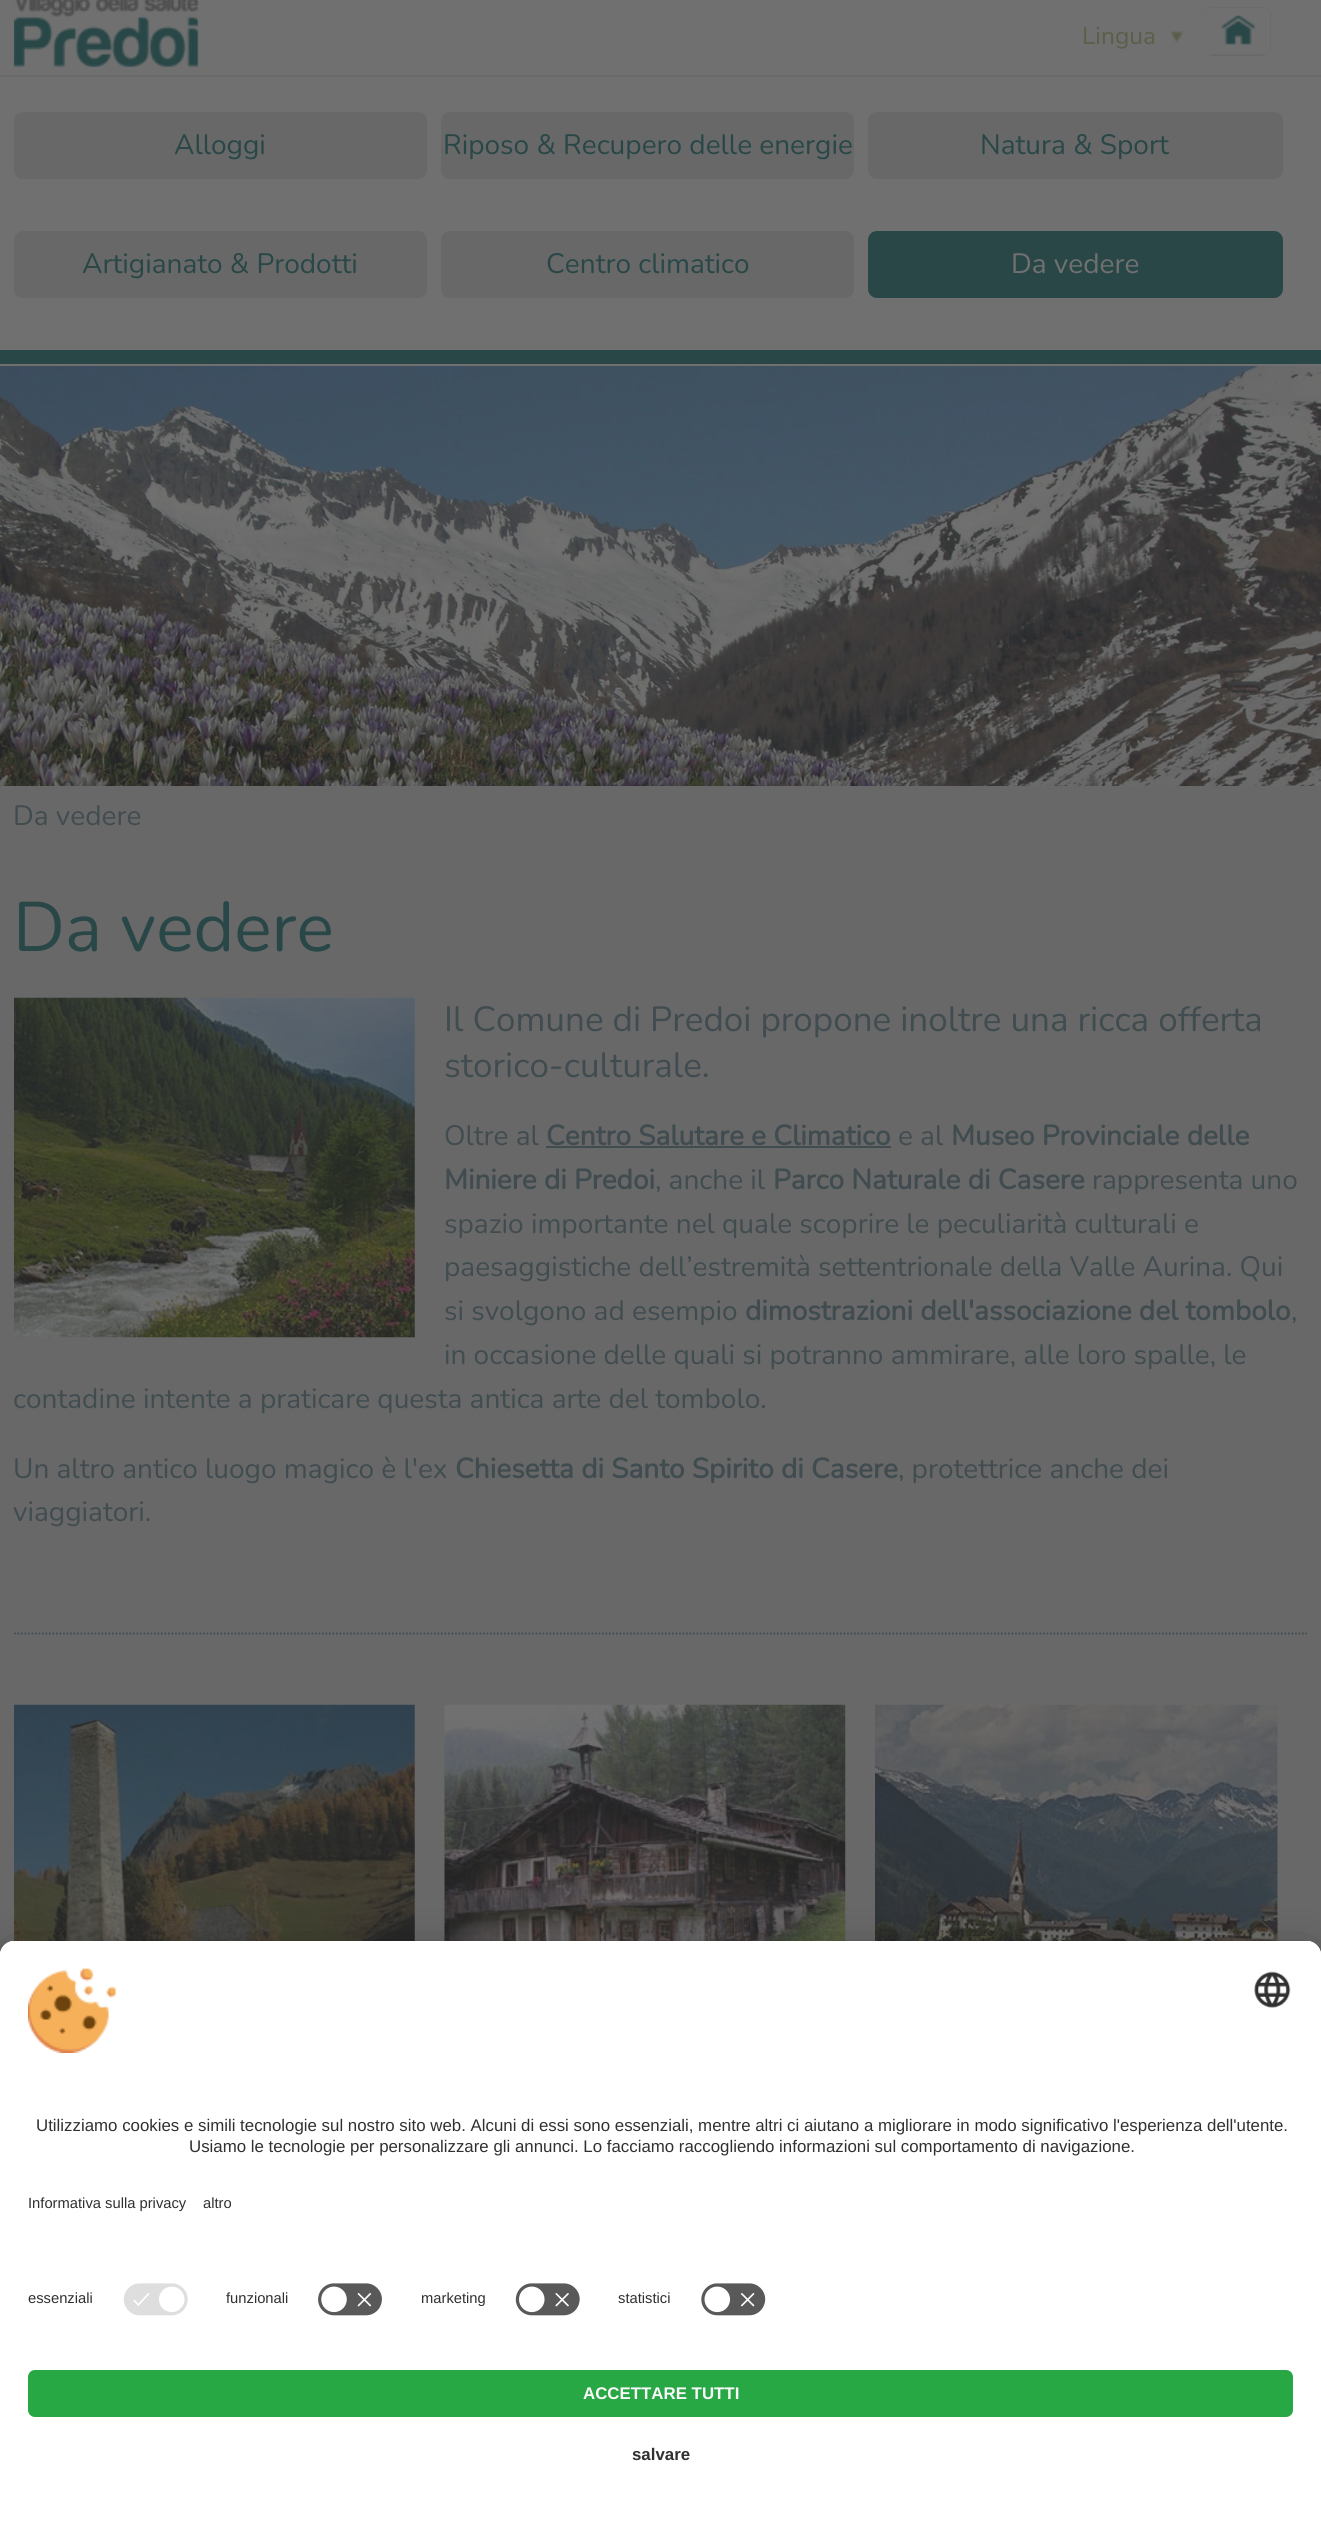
#include <cairo/cairo.h>
#include <math.h>
#include <stddef.h>

typedef struct { double x, y; const char *s; } line_t;
static cairo_t *cr;

static void rgb(unsigned color)
{
	cairo_set_source_rgb(cr, (color >> 16) / 255.0, (color >> 8 & 255) / 255.0, (color & 255) / 255.0);
}

static void rrect(double x, double y, double w, double h, double r)
{
	cairo_new_sub_path(cr);
	cairo_arc(cr, x + w - r, y + h - r, r, 0, M_PI / 2);
	cairo_arc(cr, x + r, y + h - r, r, M_PI / 2, M_PI);
	cairo_arc(cr, x + r, y + r, r, M_PI, 1.5 * M_PI);
	cairo_arc(cr, x + w - r, y + r, r, 1.5 * M_PI, 2 * M_PI);
	cairo_close_path(cr);
}

static void soft_shadow(double x, double y, double w, double h, double r, double blur, double alpha)
{
	cairo_push_group_with_content(cr, CAIRO_CONTENT_ALPHA);
	cairo_set_operator(cr, CAIRO_OPERATOR_SOURCE);
	for (int i = 15; i >= -15 && fmin(w, h) + blur * i / 3 > 0; i -= 2) {
		double e = blur * i / 6;
		cairo_set_source_rgba(cr, 0, 0, 0, alpha * erfc((i - 1) / 8.5) / 2);
		rrect(x - e, y - e, w + 2 * e, h + 2 * e, fmax(0, fmin(r + e + blur * .6, fmin(w, h) / 2 + e)));
		cairo_fill(cr);
	}
	cairo_pattern_t *soft = cairo_pop_group(cr);
	cairo_mask(cr, soft);
	cairo_pattern_destroy(soft);
}

static void image(const char *path, double x, double y, double w, double h)
{
	cairo_surface_t *image = cairo_image_surface_create_from_png(path);
	cairo_save(cr);
	cairo_set_source_surface(cr, image, x, y);
	cairo_rectangle(cr, x, y, w, h);
	cairo_fill(cr);
	cairo_restore(cr);
	cairo_surface_destroy(image);
}

int main(void) {
	cairo_surface_t *surface = cairo_image_surface_create(CAIRO_FORMAT_RGB24, 1321, 2526);
	cr = cairo_create(surface);
	cairo_font_options_t *options = cairo_font_options_create();
	cairo_font_options_set_hint_metrics(options, CAIRO_HINT_METRICS_OFF);
	cairo_font_options_set_hint_style(options, CAIRO_HINT_STYLE_NONE);
	cairo_set_font_options(cr, options);
	cairo_set_miter_limit(cr, 4);
	rgb(0x686868);
	cairo_paint(cr);
	rgb(0x707070);
	cairo_rectangle(cr, 0, 0, 1321, 350);
	cairo_fill(cr);
	image("img/1.png", 14, 0, 185, 67);
	image("img/2.png", 1170, 31, 14, 12);
	rgb(0x294747);
	cairo_rectangle(cr, 0, 350, 1321, 14);
	cairo_fill(cr);
	rgb(0x6a6a6a);
	cairo_rectangle(cr, 0, 75, 1321, 2);
	cairo_fill(cr);
	rgb(0x686868);
	rrect(1204, 7, 67, 49, 9);
	cairo_fill(cr);
	image("img/3.png", 1204, 7, 67, 48);
	rrect(14, 112, 413, 67, 9);
	cairo_fill(cr);
	rrect(441, 112, 413, 67, 9);
	cairo_fill(cr);
	rrect(868, 112, 415, 67, 9);
	cairo_fill(cr);
	rrect(14, 231, 413, 67, 9);
	cairo_fill(cr);
	rrect(441, 231, 413, 67, 9);
	cairo_fill(cr);
	rgb(0x294747);
	rrect(868, 231, 415, 67, 9);
	cairo_fill(cr);
	rgb(0x707070);
	cairo_rectangle(cr, 0, 364, 1321, 2);
	cairo_fill(cr);
	image("img/4.png", 0, 366, 1321, 420);
	image("img/5.png", 14, 997, 401, 341);
	rgb(0x414c50);
	cairo_rectangle(cr, 546, 1146, 345, 2);
	cairo_fill(cr);
	cairo_new_path(cr);
	cairo_move_to(cr, 14, 1633.5);
	cairo_line_to(cr, 1307, 1633.5);
	cairo_set_line_width(cr, 1.8);
	cairo_set_dash(cr, (double[]){1.75, 1.75}, 2, 0);
	cairo_stroke(cr);
	image("img/6.png", 14, 1704, 401, 237);
	image("img/7.png", 444, 1704, 402, 237);
	image("img/8.png", 875, 1704, 403, 237);
	rgb(0x000000);
	soft_shadow(0, 1976, 1321, 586, 14, 24.5, 0.3);
	soft_shadow(0, 1950, 1321, 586, 14, 23, 0.22);
	rgb(0xffffff);
	cairo_new_path(cr);
	cairo_move_to(cr, 14, 1941);
	cairo_line_to(cr, 1307, 1941);
	cairo_curve_to(cr, 1314.5, 1941, 1321, 1947.5, 1321, 1955);
	cairo_line_to(cr, 1321, 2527);
	cairo_line_to(cr, 0, 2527);
	cairo_line_to(cr, 0, 1955);
	cairo_curve_to(cr, 0, 1947.5, 6.5, 1941, 14, 1941);
	cairo_close_path(cr);
	cairo_fill(cr);
	cairo_new_path(cr);
	cairo_move_to(cr, 14, 1941);
	cairo_line_to(cr, 1307, 1941);
	cairo_curve_to(cr, 1314.5, 1941, 1321, 1947.5, 1321, 1955);
	cairo_line_to(cr, 1321, 2349);
	cairo_line_to(cr, 0, 2349);
	cairo_line_to(cr, 0, 1955);
	cairo_curve_to(cr, 0, 1947.5, 6.5, 1941, 14, 1941);
	cairo_close_path(cr);
	cairo_fill(cr);
	cairo_new_path(cr);
	cairo_move_to(cr, 14, 1941);
	cairo_line_to(cr, 1307, 1941);
	cairo_curve_to(cr, 1314.5, 1941, 1321, 1947.5, 1321, 1955);
	cairo_line_to(cr, 1321, 2272);
	cairo_line_to(cr, 0, 2272);
	cairo_line_to(cr, 0, 1955);
	cairo_curve_to(cr, 0, 1947.5, 6.5, 1941, 14, 1941);
	cairo_close_path(cr);
	cairo_fill(cr);
	image("img/9.png", 28, 1968, 89, 85);
	image("img/10.png", 1254, 1971, 37, 37);
	image("img/11.png", 123, 2283, 65, 33);
	image("img/12.png", 318, 2283, 64, 33);
	image("img/13.png", 515, 2283, 65, 33);
	image("img/14.png", 701, 2283, 65, 33);
	rgb(0x28a745);
	rrect(28, 2370, 1265, 47, 7);
	cairo_fill(cr);
	cairo_select_font_face(cr, "Nunito ExtraLight", CAIRO_FONT_SLANT_NORMAL, CAIRO_FONT_WEIGHT_NORMAL);
	cairo_set_font_size(cr, 24.5);
	rgb(0x5b5e48);
	cairo_move_to(cr, 1082, 44);
	cairo_show_text(cr, "Lingua");
	cairo_set_font_size(cr, 28);
	rgb(0x294747);
	{
		static const line_t items[] = {
			{174, 154, "Alloggi"},
			{443, 154, "Riposo & Recupero delle energie"},
			{980, 154, "Natura & Sport"},
			{82, 273, "Artigianato & Prodotti"},
			{546, 273, "Centro climatico"},
		};
		for (size_t i = 0; i < sizeof items / sizeof *items; i++) {
			cairo_move_to(cr, items[i].x, items[i].y);
			cairo_show_text(cr, items[i].s);
		}
	}
	rgb(0x707070);
	cairo_move_to(cr, 1011, 273);
	cairo_show_text(cr, "Da vedere");
	rgb(0x414c50);
	cairo_move_to(cr, 13, 825);
	cairo_show_text(cr, "Da vedere");
	cairo_set_font_size(cr, 70);
	rgb(0x294747);
	cairo_move_to(cr, 13, 951);
	cairo_show_text(cr, "Da vedere");
	cairo_set_font_size(cr, 35);
	rgb(0x414c50);
	cairo_move_to(cr, 444, 1031);
	cairo_show_text(cr, "Il Comune di Predoi propone inoltre una ricca offerta");
	cairo_move_to(cr, 444, 1077);
	cairo_show_text(cr, "storico-culturale.");
	cairo_set_font_size(cr, 28);
	cairo_move_to(cr, 444, 1145);
	cairo_show_text(cr, "Oltre al");
	cairo_select_font_face(cr, "Nunito", CAIRO_FONT_SLANT_NORMAL, CAIRO_FONT_WEIGHT_BOLD);
	cairo_move_to(cr, 546, 1145);
	cairo_show_text(cr, "Centro Salutare e Climatico");
	cairo_select_font_face(cr, "Nunito ExtraLight", CAIRO_FONT_SLANT_NORMAL, CAIRO_FONT_WEIGHT_NORMAL);
	cairo_move_to(cr, 898, 1145);
	cairo_show_text(cr, "e al");
	cairo_select_font_face(cr, "Nunito", CAIRO_FONT_SLANT_NORMAL, CAIRO_FONT_WEIGHT_BOLD);
	cairo_move_to(cr, 951, 1145);
	cairo_show_text(cr, "Museo Provinciale delle");
	cairo_move_to(cr, 444, 1189);
	cairo_show_text(cr, "Miniere di Predoi");
	cairo_select_font_face(cr, "Nunito ExtraLight", CAIRO_FONT_SLANT_NORMAL, CAIRO_FONT_WEIGHT_NORMAL);
	cairo_move_to(cr, 655, 1189);
	cairo_show_text(cr, ", anche il");
	cairo_select_font_face(cr, "Nunito", CAIRO_FONT_SLANT_NORMAL, CAIRO_FONT_WEIGHT_BOLD);
	cairo_move_to(cr, 773, 1189);
	cairo_show_text(cr, "Parco Naturale di Casere");
	cairo_select_font_face(cr, "Nunito ExtraLight", CAIRO_FONT_SLANT_NORMAL, CAIRO_FONT_WEIGHT_NORMAL);
	{
		static const line_t items[] = {
			{1092, 1189, "rappresenta uno"},
			{444, 1233, "spazio importante nel quale scoprire le peculiarità culturali e"},
			{444, 1276, "paesaggistiche dell’estremità settentrionale della Valle Aurina. Qui"},
			{444, 1320, "si svolgono ad esempio"},
		};
		for (size_t i = 0; i < sizeof items / sizeof *items; i++) {
			cairo_move_to(cr, items[i].x, items[i].y);
			cairo_show_text(cr, items[i].s);
		}
	}
	cairo_select_font_face(cr, "Nunito", CAIRO_FONT_SLANT_NORMAL, CAIRO_FONT_WEIGHT_BOLD);
	cairo_move_to(cr, 745, 1320);
	cairo_show_text(cr, "dimostrazioni dell'associazione del tombolo");
	cairo_select_font_face(cr, "Nunito ExtraLight", CAIRO_FONT_SLANT_NORMAL, CAIRO_FONT_WEIGHT_NORMAL);
	{
		static const line_t items[] = {
			{1291, 1320, ","},
			{444, 1364, "in occasione delle quali si potranno ammirare, alle loro spalle, le"},
			{13, 1408, "contadine intente a praticare questa antica arte del tombolo."},
			{13, 1478, "Un altro antico luogo magico è l'ex"},
		};
		for (size_t i = 0; i < sizeof items / sizeof *items; i++) {
			cairo_move_to(cr, items[i].x, items[i].y);
			cairo_show_text(cr, items[i].s);
		}
	}
	cairo_select_font_face(cr, "Nunito", CAIRO_FONT_SLANT_NORMAL, CAIRO_FONT_WEIGHT_BOLD);
	cairo_move_to(cr, 455, 1478);
	cairo_show_text(cr, "Chiesetta di Santo Spirito di Casere");
	cairo_select_font_face(cr, "Nunito ExtraLight", CAIRO_FONT_SLANT_NORMAL, CAIRO_FONT_WEIGHT_NORMAL);
	cairo_move_to(cr, 898, 1478);
	cairo_show_text(cr, ", protettrice anche dei");
	cairo_move_to(cr, 13, 1521);
	cairo_show_text(cr, "viaggiatori.");
	cairo_select_font_face(cr, "Liberation Sans", CAIRO_FONT_SLANT_NORMAL, CAIRO_FONT_WEIGHT_NORMAL);
	cairo_set_font_size(cr, 16.85);
	rgb(0x303030);
	cairo_move_to(cr, 36, 2131);
	cairo_show_text(cr, "Utilizziamo cookies e simili tecnologie sul nostro sito web. Alcuni di essi sono essenziali, mentre altri ci aiutano a migliorare in modo significativo l'esperienza dell'utente.");
	cairo_move_to(cr, 189, 2152);
	cairo_show_text(cr, "Usiamo le tecnologie per personalizzare gli annunci. Lo facciamo raccogliendo informazioni sul comportamento di navigazione.");
	cairo_set_font_size(cr, 14.75);
	{
		static const line_t items[] = {
			{28, 2208, "Informativa sulla privacy"},
			{203, 2208, "altro"},
			{28, 2303, "essenziali"},
			{226, 2303, "funzionali"},
			{421, 2303, "marketing"},
			{618, 2303, "statistici"},
		};
		for (size_t i = 0; i < sizeof items / sizeof *items; i++) {
			cairo_move_to(cr, items[i].x, items[i].y);
			cairo_show_text(cr, items[i].s);
		}
	}
	cairo_select_font_face(cr, "Liberation Sans", CAIRO_FONT_SLANT_NORMAL, CAIRO_FONT_WEIGHT_BOLD);
	cairo_set_font_size(cr, 16.85);
	rgb(0xfafafa);
	cairo_move_to(cr, 583, 2399);
	cairo_show_text(cr, "ACCETTARE TUTTI");
	rgb(0x303030);
	cairo_move_to(cr, 632, 2460);
	cairo_show_text(cr, "salvare");
	cairo_surface_write_to_png(surface, "page.png");
	cairo_font_options_destroy(options);
	cairo_destroy(cr);
	cairo_surface_destroy(surface);
	return 0;
}
